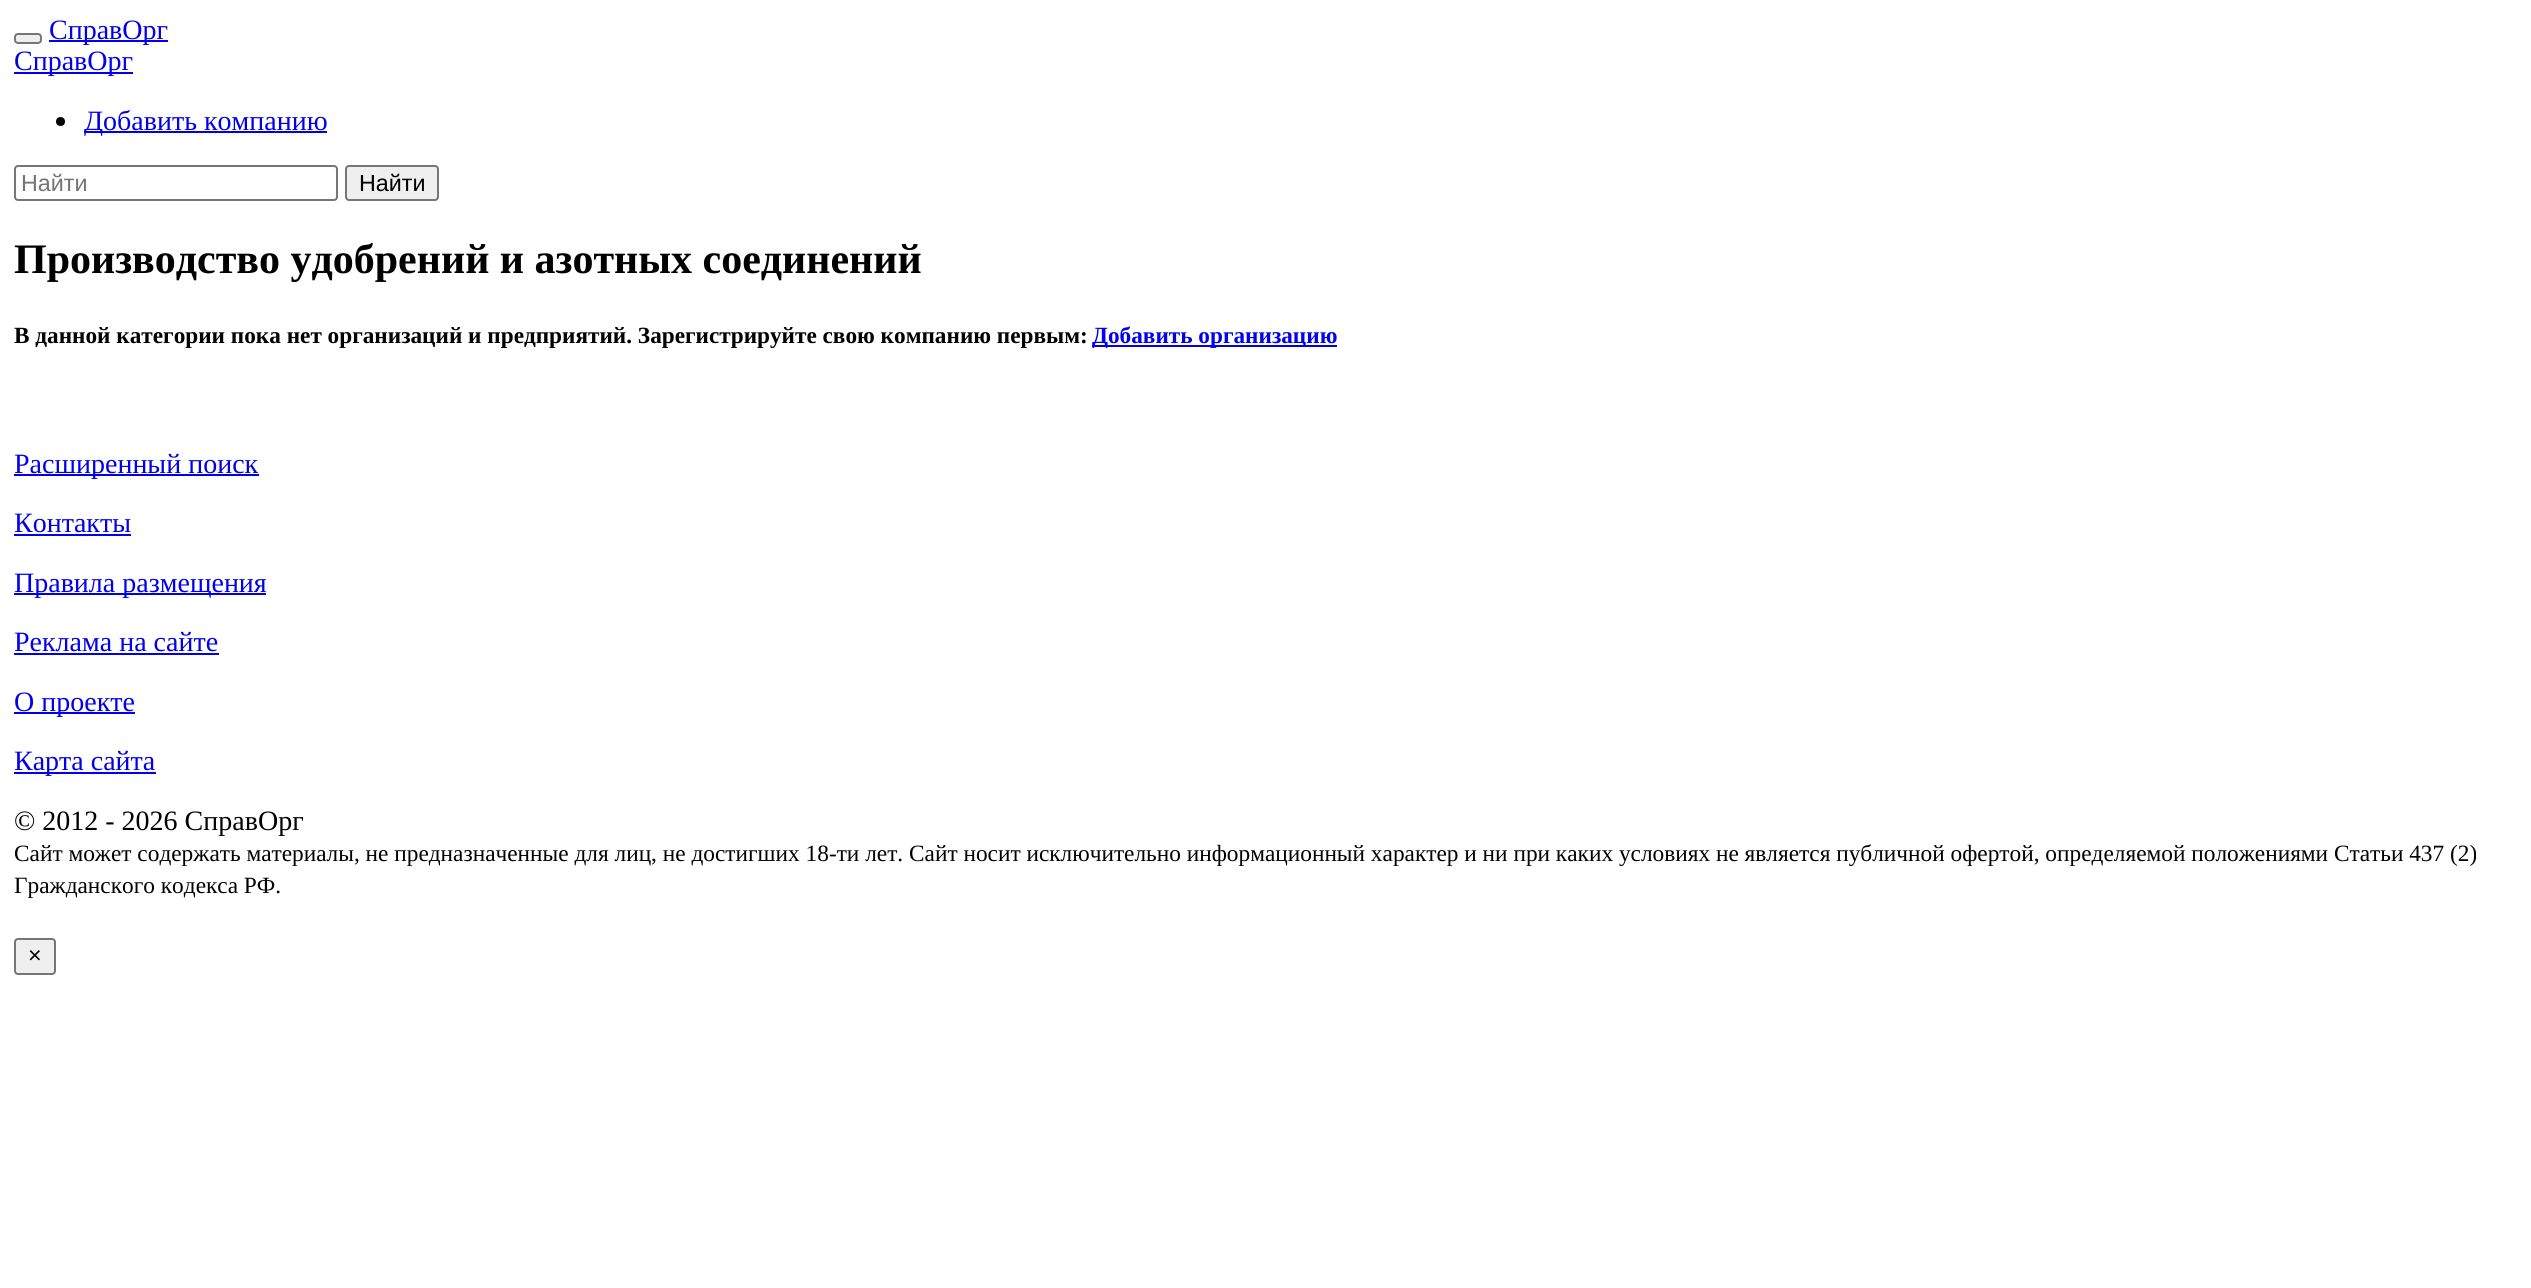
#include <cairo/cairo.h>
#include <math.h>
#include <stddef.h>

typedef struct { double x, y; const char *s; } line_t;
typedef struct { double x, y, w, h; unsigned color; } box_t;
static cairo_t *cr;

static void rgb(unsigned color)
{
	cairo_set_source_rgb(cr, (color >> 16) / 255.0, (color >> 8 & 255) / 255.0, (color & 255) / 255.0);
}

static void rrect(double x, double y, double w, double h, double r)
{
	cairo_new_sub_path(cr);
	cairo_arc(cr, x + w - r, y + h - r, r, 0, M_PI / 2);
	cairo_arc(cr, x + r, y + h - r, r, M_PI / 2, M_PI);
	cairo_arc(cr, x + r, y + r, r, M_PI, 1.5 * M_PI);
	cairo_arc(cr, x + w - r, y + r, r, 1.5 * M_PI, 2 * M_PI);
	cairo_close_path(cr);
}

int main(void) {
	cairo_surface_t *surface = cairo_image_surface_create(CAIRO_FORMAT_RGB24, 2531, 1288);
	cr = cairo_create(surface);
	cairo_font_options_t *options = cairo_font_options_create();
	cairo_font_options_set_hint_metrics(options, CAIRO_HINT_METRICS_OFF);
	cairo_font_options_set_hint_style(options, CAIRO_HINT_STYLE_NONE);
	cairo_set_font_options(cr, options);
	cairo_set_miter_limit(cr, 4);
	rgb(0xffffff);
	cairo_paint(cr);
	rgb(0xefefef);
	rrect(15, 34, 26, 9, 3);
	cairo_fill_preserve(cr);
	rgb(0x767676);
	cairo_stroke(cr);
	rgb(0x0000ee);
	cairo_rectangle(cr, 49, 40, 119, 2);
	cairo_fill(cr);
	cairo_rectangle(cr, 14, 72, 119, 2);
	cairo_fill(cr);
	rgb(0x000000);
	cairo_arc(cr, 60.5, 121.5, 4.5, 0, 2 * M_PI);
	cairo_fill(cr);
	rgb(0x0000ee);
	cairo_rectangle(cr, 84, 131, 243, 2);
	cairo_fill(cr);
	rrect(15, 166, 322, 34, 3);
	rgb(0x767676);
	cairo_stroke(cr);
	rgb(0xefefef);
	rrect(346, 166, 92, 34, 3);
	cairo_fill_preserve(cr);
	rgb(0x767676);
	cairo_stroke(cr);
	{
		static const box_t items[] = {
			{1092, 345, 245, 2, 0x0000ee},
			{14, 474, 245, 2, 0x0000ee},
			{14, 534, 117, 2, 0x0000ee},
			{14, 593, 252, 2, 0x0000ee},
			{14, 653, 205, 2, 0x0000ee},
			{14, 712, 121, 2, 0x0000ee},
			{14, 772, 142, 2, 0x0000ee},
		};
		for (size_t i = 0; i < sizeof items / sizeof *items; i++) {
			rgb(items[i].color);
			cairo_rectangle(cr, items[i].x, items[i].y, items[i].w, items[i].h);
			cairo_fill(cr);
		}
	}
	rgb(0xefefef);
	rrect(15, 939, 40, 35, 3);
	cairo_fill_preserve(cr);
	rgb(0x767676);
	cairo_stroke(cr);
	cairo_select_font_face(cr, "Liberation Serif", CAIRO_FONT_SLANT_NORMAL, CAIRO_FONT_WEIGHT_NORMAL);
	cairo_set_font_size(cr, 28);
	rgb(0x0000ee);
	{
		static const line_t items[] = {
			{49, 39, "СправОрг"},
			{14, 70, "СправОрг"},
			{84, 130, "Добавить компанию"},
		};
		for (size_t i = 0; i < sizeof items / sizeof *items; i++) {
			cairo_move_to(cr, items[i].x, items[i].y);
			cairo_show_text(cr, items[i].s);
		}
	}
	cairo_select_font_face(cr, "Liberation Sans", CAIRO_FONT_SLANT_NORMAL, CAIRO_FONT_WEIGHT_NORMAL);
	cairo_set_font_size(cr, 23.33);
	rgb(0x757575);
	cairo_move_to(cr, 21, 191);
	cairo_show_text(cr, "Найти");
	rgb(0x000000);
	cairo_move_to(cr, 359, 191);
	cairo_show_text(cr, "Найти");
	cairo_select_font_face(cr, "Liberation Serif", CAIRO_FONT_SLANT_NORMAL, CAIRO_FONT_WEIGHT_BOLD);
	cairo_set_font_size(cr, 42);
	cairo_move_to(cr, 14, 273);
	cairo_show_text(cr, "Производство удобрений и азотных соединений");
	cairo_set_font_size(cr, 23.25);
	cairo_move_to(cr, 14, 343);
	cairo_show_text(cr, "В данной категории пока нет организаций и предприятий. Зарегистрируйте свою компанию первым:");
	rgb(0x0000ee);
	cairo_move_to(cr, 1092, 343);
	cairo_show_text(cr, "Добавить организацию");
	cairo_select_font_face(cr, "Liberation Serif", CAIRO_FONT_SLANT_NORMAL, CAIRO_FONT_WEIGHT_NORMAL);
	cairo_set_font_size(cr, 28);
	{
		static const line_t items[] = {
			{14, 473, "Расширенный поиск"},
			{14, 532, "Контакты"},
			{14, 592, "Правила размещения"},
			{14, 651, "Реклама на сайте"},
			{14, 711, "О проекте"},
			{14, 770, "Карта сайта"},
		};
		for (size_t i = 0; i < sizeof items / sizeof *items; i++) {
			cairo_move_to(cr, items[i].x, items[i].y);
			cairo_show_text(cr, items[i].s);
		}
	}
	rgb(0x000000);
	cairo_move_to(cr, 14, 830);
	cairo_show_text(cr, "© 2012 - 2026 СправОрг");
	cairo_set_font_size(cr, 23.33);
	{
		static const line_t items[] = {
			{14, 861, "Сайт может содержать материалы, не предназначенные для лиц, не достигших 18-ти лет."},
			{909, 861, "Cайт носит исключительно информационный характер и ни при каких условиях не является публичной офертой, определяемой положениями Статьи 437 (2)"},
			{14, 893, "Гражданского кодекса РФ."},
		};
		for (size_t i = 0; i < sizeof items / sizeof *items; i++) {
			cairo_move_to(cr, items[i].x, items[i].y);
			cairo_show_text(cr, items[i].s);
		}
	}
	cairo_select_font_face(cr, "Liberation Sans", CAIRO_FONT_SLANT_NORMAL, CAIRO_FONT_WEIGHT_NORMAL);
	cairo_move_to(cr, 28, 963);
	cairo_show_text(cr, "×");
	cairo_surface_write_to_png(surface, "page.png");
	cairo_font_options_destroy(options);
	cairo_destroy(cr);
	cairo_surface_destroy(surface);
	return 0;
}
